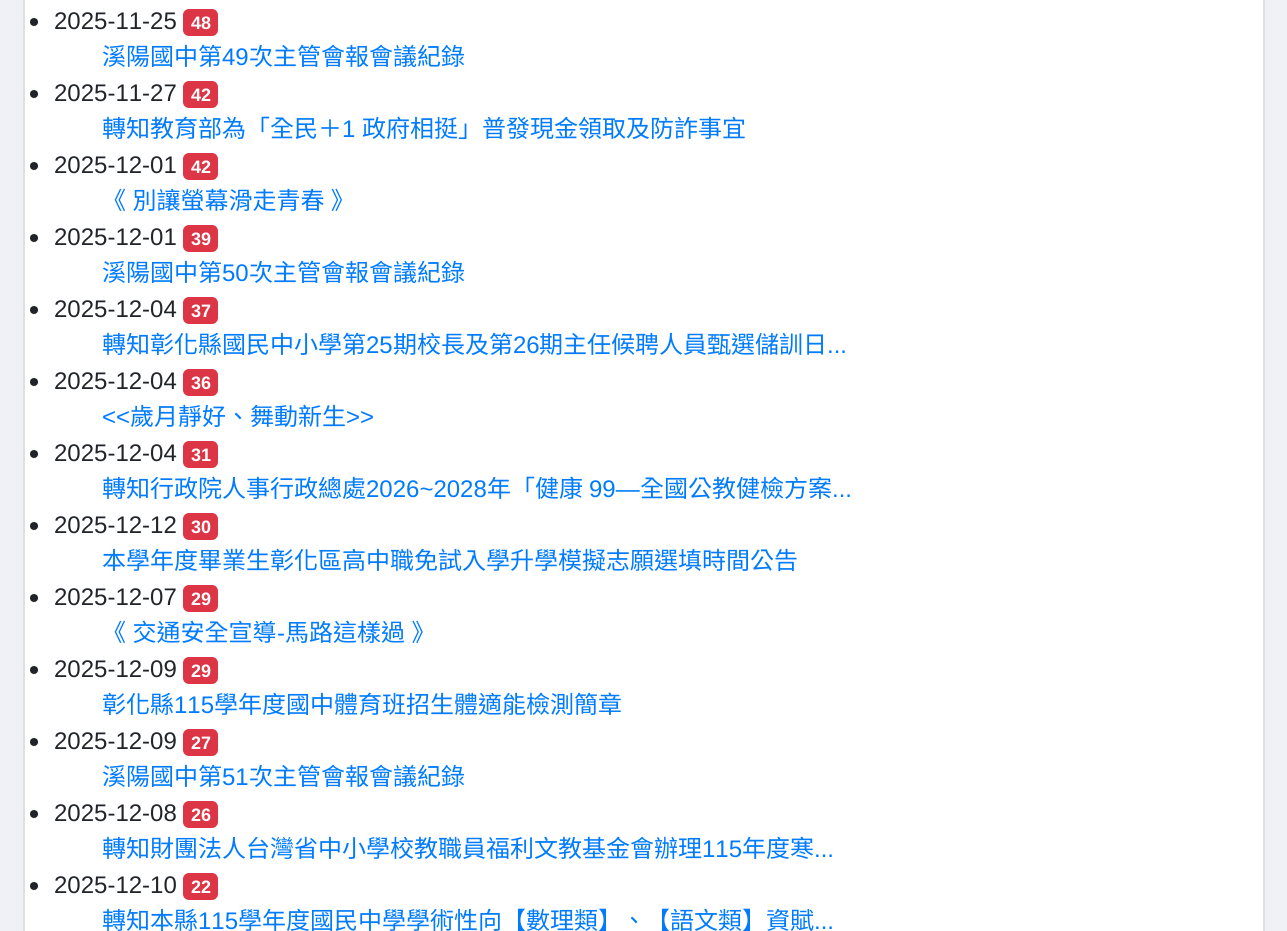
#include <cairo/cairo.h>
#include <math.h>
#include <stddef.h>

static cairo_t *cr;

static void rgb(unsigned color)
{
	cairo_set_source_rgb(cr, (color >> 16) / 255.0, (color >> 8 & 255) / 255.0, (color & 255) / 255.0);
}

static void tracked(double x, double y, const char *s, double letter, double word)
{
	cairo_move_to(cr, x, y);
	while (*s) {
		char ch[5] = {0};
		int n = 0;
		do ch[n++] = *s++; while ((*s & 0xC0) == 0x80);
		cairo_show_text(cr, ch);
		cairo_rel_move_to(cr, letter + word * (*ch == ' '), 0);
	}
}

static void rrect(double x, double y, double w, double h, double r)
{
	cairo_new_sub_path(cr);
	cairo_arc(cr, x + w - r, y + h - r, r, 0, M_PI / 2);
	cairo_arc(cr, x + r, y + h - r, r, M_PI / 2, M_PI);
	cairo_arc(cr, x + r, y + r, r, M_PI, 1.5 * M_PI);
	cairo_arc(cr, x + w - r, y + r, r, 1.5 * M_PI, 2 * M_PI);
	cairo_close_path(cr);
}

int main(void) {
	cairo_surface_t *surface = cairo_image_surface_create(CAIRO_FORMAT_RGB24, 1287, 931);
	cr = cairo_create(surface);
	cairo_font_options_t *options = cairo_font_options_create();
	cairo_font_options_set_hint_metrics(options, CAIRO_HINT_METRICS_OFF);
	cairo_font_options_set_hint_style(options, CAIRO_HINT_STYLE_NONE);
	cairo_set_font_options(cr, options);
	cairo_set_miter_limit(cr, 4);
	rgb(0xf0f1f6);
	cairo_paint(cr);
	rgb(0xffffff);
	cairo_rectangle(cr, 24, -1, 1240, 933);
	cairo_fill_preserve(cr);
	rgb(0xdfdfdf);
	cairo_stroke(cr);
	rgb(0x212529);
	cairo_arc(cr, 34, 22, 4, 0, 2 * M_PI);
	cairo_fill(cr);
	rgb(0xdc3545);
	rrect(183, 9, 35, 27, 6);
	cairo_fill(cr);
	rgb(0x212529);
	cairo_arc(cr, 34, 94, 4, 0, 2 * M_PI);
	cairo_fill(cr);
	rgb(0xdc3545);
	rrect(183, 81, 35, 27, 6);
	cairo_fill(cr);
	rgb(0x212529);
	cairo_arc(cr, 34, 166, 4, 0, 2 * M_PI);
	cairo_fill(cr);
	rgb(0xdc3545);
	rrect(183, 153, 35, 27, 6);
	cairo_fill(cr);
	rgb(0x212529);
	cairo_arc(cr, 34, 238, 4, 0, 2 * M_PI);
	cairo_fill(cr);
	rgb(0xdc3545);
	rrect(183, 225, 35, 27, 6);
	cairo_fill(cr);
	rgb(0x212529);
	cairo_arc(cr, 34, 310, 4, 0, 2 * M_PI);
	cairo_fill(cr);
	rgb(0xdc3545);
	rrect(183, 297, 35, 27, 6);
	cairo_fill(cr);
	rgb(0x212529);
	cairo_arc(cr, 34, 382, 4, 0, 2 * M_PI);
	cairo_fill(cr);
	rgb(0xdc3545);
	rrect(183, 369, 35, 27, 6);
	cairo_fill(cr);
	rgb(0x212529);
	cairo_arc(cr, 34, 454, 4, 0, 2 * M_PI);
	cairo_fill(cr);
	rgb(0xdc3545);
	rrect(183, 441, 35, 27, 6);
	cairo_fill(cr);
	rgb(0x212529);
	cairo_arc(cr, 34, 526, 4, 0, 2 * M_PI);
	cairo_fill(cr);
	rgb(0xdc3545);
	rrect(183, 513, 35, 27, 6);
	cairo_fill(cr);
	rgb(0x212529);
	cairo_arc(cr, 34, 598, 4, 0, 2 * M_PI);
	cairo_fill(cr);
	rgb(0xdc3545);
	rrect(183, 585, 35, 27, 6);
	cairo_fill(cr);
	rgb(0x212529);
	cairo_arc(cr, 34, 670, 4, 0, 2 * M_PI);
	cairo_fill(cr);
	rgb(0xdc3545);
	rrect(183, 657, 35, 27, 6);
	cairo_fill(cr);
	rgb(0x212529);
	cairo_arc(cr, 34, 742, 4, 0, 2 * M_PI);
	cairo_fill(cr);
	rgb(0xdc3545);
	rrect(183, 729, 35, 27, 6);
	cairo_fill(cr);
	rgb(0x212529);
	cairo_arc(cr, 34, 814, 4, 0, 2 * M_PI);
	cairo_fill(cr);
	rgb(0xdc3545);
	rrect(183, 801, 35, 27, 6);
	cairo_fill(cr);
	rgb(0x212529);
	cairo_arc(cr, 34, 886, 4, 0, 2 * M_PI);
	cairo_fill(cr);
	rgb(0xdc3545);
	rrect(183, 873, 35, 27, 6);
	cairo_fill(cr);
	cairo_select_font_face(cr, "Liberation Sans", CAIRO_FONT_SLANT_NORMAL, CAIRO_FONT_WEIGHT_NORMAL);
	cairo_set_font_size(cr, 24);
	rgb(0x212529);
	cairo_move_to(cr, 54, 29);
	cairo_show_text(cr, "2025-11-25");
	cairo_select_font_face(cr, "Liberation Sans", CAIRO_FONT_SLANT_NORMAL, CAIRO_FONT_WEIGHT_BOLD);
	cairo_set_font_size(cr, 18);
	rgb(0xffffff);
	cairo_move_to(cr, 191, 29);
	cairo_show_text(cr, "48");
	cairo_select_font_face(cr, "Noto Sans CJK TC", CAIRO_FONT_SLANT_NORMAL, CAIRO_FONT_WEIGHT_NORMAL);
	cairo_set_font_size(cr, 24);
	rgb(0x007bff);
	cairo_move_to(cr, 102, 65);
	cairo_show_text(cr, "溪陽國中第");
	cairo_select_font_face(cr, "Liberation Sans", CAIRO_FONT_SLANT_NORMAL, CAIRO_FONT_WEIGHT_NORMAL);
	cairo_move_to(cr, 222, 65);
	cairo_show_text(cr, "49");
	cairo_select_font_face(cr, "Noto Sans CJK TC", CAIRO_FONT_SLANT_NORMAL, CAIRO_FONT_WEIGHT_NORMAL);
	cairo_move_to(cr, 249, 65);
	cairo_show_text(cr, "次主管會報會議紀錄");
	cairo_select_font_face(cr, "Liberation Sans", CAIRO_FONT_SLANT_NORMAL, CAIRO_FONT_WEIGHT_NORMAL);
	rgb(0x212529);
	cairo_move_to(cr, 54, 101);
	cairo_show_text(cr, "2025-11-27");
	cairo_select_font_face(cr, "Liberation Sans", CAIRO_FONT_SLANT_NORMAL, CAIRO_FONT_WEIGHT_BOLD);
	cairo_set_font_size(cr, 18);
	rgb(0xffffff);
	cairo_move_to(cr, 191, 101);
	cairo_show_text(cr, "42");
	cairo_select_font_face(cr, "Noto Sans CJK TC", CAIRO_FONT_SLANT_NORMAL, CAIRO_FONT_WEIGHT_NORMAL);
	cairo_set_font_size(cr, 24);
	rgb(0x007bff);
	cairo_move_to(cr, 102, 137);
	cairo_show_text(cr, "轉知教育部為「全民＋");
	cairo_select_font_face(cr, "Liberation Sans", CAIRO_FONT_SLANT_NORMAL, CAIRO_FONT_WEIGHT_NORMAL);
	cairo_move_to(cr, 342, 137);
	cairo_show_text(cr, "1");
	cairo_select_font_face(cr, "Noto Sans CJK TC", CAIRO_FONT_SLANT_NORMAL, CAIRO_FONT_WEIGHT_NORMAL);
	cairo_move_to(cr, 362, 137);
	cairo_show_text(cr, "政府相挺」普發現金領取及防詐事宜");
	cairo_select_font_face(cr, "Liberation Sans", CAIRO_FONT_SLANT_NORMAL, CAIRO_FONT_WEIGHT_NORMAL);
	rgb(0x212529);
	cairo_move_to(cr, 54, 173);
	cairo_show_text(cr, "2025-12-01");
	cairo_select_font_face(cr, "Liberation Sans", CAIRO_FONT_SLANT_NORMAL, CAIRO_FONT_WEIGHT_BOLD);
	cairo_set_font_size(cr, 18);
	rgb(0xffffff);
	cairo_move_to(cr, 191, 173);
	cairo_show_text(cr, "42");
	cairo_select_font_face(cr, "Noto Sans CJK TC", CAIRO_FONT_SLANT_NORMAL, CAIRO_FONT_WEIGHT_NORMAL);
	cairo_set_font_size(cr, 24);
	rgb(0x007bff);
	tracked(102, 209, "《 別讓螢幕滑走青春 》", 0, 1);
	cairo_select_font_face(cr, "Liberation Sans", CAIRO_FONT_SLANT_NORMAL, CAIRO_FONT_WEIGHT_NORMAL);
	rgb(0x212529);
	cairo_move_to(cr, 54, 245);
	cairo_show_text(cr, "2025-12-01");
	cairo_select_font_face(cr, "Liberation Sans", CAIRO_FONT_SLANT_NORMAL, CAIRO_FONT_WEIGHT_BOLD);
	cairo_set_font_size(cr, 18);
	rgb(0xffffff);
	cairo_move_to(cr, 191, 245);
	cairo_show_text(cr, "39");
	cairo_select_font_face(cr, "Noto Sans CJK TC", CAIRO_FONT_SLANT_NORMAL, CAIRO_FONT_WEIGHT_NORMAL);
	cairo_set_font_size(cr, 24);
	rgb(0x007bff);
	cairo_move_to(cr, 102, 281);
	cairo_show_text(cr, "溪陽國中第");
	cairo_select_font_face(cr, "Liberation Sans", CAIRO_FONT_SLANT_NORMAL, CAIRO_FONT_WEIGHT_NORMAL);
	cairo_move_to(cr, 222, 281);
	cairo_show_text(cr, "50");
	cairo_select_font_face(cr, "Noto Sans CJK TC", CAIRO_FONT_SLANT_NORMAL, CAIRO_FONT_WEIGHT_NORMAL);
	cairo_move_to(cr, 249, 281);
	cairo_show_text(cr, "次主管會報會議紀錄");
	cairo_select_font_face(cr, "Liberation Sans", CAIRO_FONT_SLANT_NORMAL, CAIRO_FONT_WEIGHT_NORMAL);
	rgb(0x212529);
	cairo_move_to(cr, 54, 317);
	cairo_show_text(cr, "2025-12-04");
	cairo_select_font_face(cr, "Liberation Sans", CAIRO_FONT_SLANT_NORMAL, CAIRO_FONT_WEIGHT_BOLD);
	cairo_set_font_size(cr, 18);
	rgb(0xffffff);
	cairo_move_to(cr, 191, 317);
	cairo_show_text(cr, "37");
	cairo_select_font_face(cr, "Noto Sans CJK TC", CAIRO_FONT_SLANT_NORMAL, CAIRO_FONT_WEIGHT_NORMAL);
	cairo_set_font_size(cr, 24);
	rgb(0x007bff);
	cairo_move_to(cr, 102, 353);
	cairo_show_text(cr, "轉知彰化縣國民中小學第");
	cairo_select_font_face(cr, "Liberation Sans", CAIRO_FONT_SLANT_NORMAL, CAIRO_FONT_WEIGHT_NORMAL);
	cairo_move_to(cr, 366, 353);
	cairo_show_text(cr, "25");
	cairo_select_font_face(cr, "Noto Sans CJK TC", CAIRO_FONT_SLANT_NORMAL, CAIRO_FONT_WEIGHT_NORMAL);
	cairo_move_to(cr, 393, 353);
	cairo_show_text(cr, "期校長及第");
	cairo_select_font_face(cr, "Liberation Sans", CAIRO_FONT_SLANT_NORMAL, CAIRO_FONT_WEIGHT_NORMAL);
	cairo_move_to(cr, 513, 353);
	cairo_show_text(cr, "26");
	cairo_select_font_face(cr, "Noto Sans CJK TC", CAIRO_FONT_SLANT_NORMAL, CAIRO_FONT_WEIGHT_NORMAL);
	cairo_move_to(cr, 539, 353);
	cairo_show_text(cr, "期主任候聘人員甄選儲訓日");
	cairo_select_font_face(cr, "Liberation Sans", CAIRO_FONT_SLANT_NORMAL, CAIRO_FONT_WEIGHT_NORMAL);
	cairo_move_to(cr, 827, 353);
	cairo_show_text(cr, "...");
	rgb(0x212529);
	cairo_move_to(cr, 54, 389);
	cairo_show_text(cr, "2025-12-04");
	cairo_select_font_face(cr, "Liberation Sans", CAIRO_FONT_SLANT_NORMAL, CAIRO_FONT_WEIGHT_BOLD);
	cairo_set_font_size(cr, 18);
	rgb(0xffffff);
	cairo_move_to(cr, 191, 389);
	cairo_show_text(cr, "36");
	cairo_select_font_face(cr, "Liberation Sans", CAIRO_FONT_SLANT_NORMAL, CAIRO_FONT_WEIGHT_NORMAL);
	cairo_set_font_size(cr, 24);
	rgb(0x007bff);
	cairo_move_to(cr, 102, 425);
	cairo_show_text(cr, "<<");
	cairo_select_font_face(cr, "Noto Sans CJK TC", CAIRO_FONT_SLANT_NORMAL, CAIRO_FONT_WEIGHT_NORMAL);
	cairo_move_to(cr, 130, 425);
	cairo_show_text(cr, "歲月靜好、舞動新生");
	cairo_select_font_face(cr, "Liberation Sans", CAIRO_FONT_SLANT_NORMAL, CAIRO_FONT_WEIGHT_NORMAL);
	cairo_move_to(cr, 346, 425);
	cairo_show_text(cr, ">>");
	rgb(0x212529);
	cairo_move_to(cr, 54, 461);
	cairo_show_text(cr, "2025-12-04");
	cairo_select_font_face(cr, "Liberation Sans", CAIRO_FONT_SLANT_NORMAL, CAIRO_FONT_WEIGHT_BOLD);
	cairo_set_font_size(cr, 18);
	rgb(0xffffff);
	cairo_move_to(cr, 191, 461);
	cairo_show_text(cr, "31");
	cairo_select_font_face(cr, "Noto Sans CJK TC", CAIRO_FONT_SLANT_NORMAL, CAIRO_FONT_WEIGHT_NORMAL);
	cairo_set_font_size(cr, 24);
	rgb(0x007bff);
	cairo_move_to(cr, 102, 497);
	cairo_show_text(cr, "轉知行政院人事行政總處");
	cairo_select_font_face(cr, "Liberation Sans", CAIRO_FONT_SLANT_NORMAL, CAIRO_FONT_WEIGHT_NORMAL);
	cairo_move_to(cr, 366, 497);
	cairo_show_text(cr, "2026~2028");
	cairo_select_font_face(cr, "Noto Sans CJK TC", CAIRO_FONT_SLANT_NORMAL, CAIRO_FONT_WEIGHT_NORMAL);
	cairo_move_to(cr, 487, 497);
	cairo_show_text(cr, "年「健康");
	cairo_select_font_face(cr, "Liberation Sans", CAIRO_FONT_SLANT_NORMAL, CAIRO_FONT_WEIGHT_NORMAL);
	cairo_move_to(cr, 589, 497);
	cairo_show_text(cr, "99—");
	cairo_select_font_face(cr, "Noto Sans CJK TC", CAIRO_FONT_SLANT_NORMAL, CAIRO_FONT_WEIGHT_NORMAL);
	cairo_move_to(cr, 640, 497);
	cairo_show_text(cr, "全國公教健檢方案");
	cairo_select_font_face(cr, "Liberation Sans", CAIRO_FONT_SLANT_NORMAL, CAIRO_FONT_WEIGHT_NORMAL);
	cairo_move_to(cr, 832, 497);
	cairo_show_text(cr, "...");
	rgb(0x212529);
	cairo_move_to(cr, 54, 533);
	cairo_show_text(cr, "2025-12-12");
	cairo_select_font_face(cr, "Liberation Sans", CAIRO_FONT_SLANT_NORMAL, CAIRO_FONT_WEIGHT_BOLD);
	cairo_set_font_size(cr, 18);
	rgb(0xffffff);
	cairo_move_to(cr, 191, 533);
	cairo_show_text(cr, "30");
	cairo_select_font_face(cr, "Noto Sans CJK TC", CAIRO_FONT_SLANT_NORMAL, CAIRO_FONT_WEIGHT_NORMAL);
	cairo_set_font_size(cr, 24);
	rgb(0x007bff);
	cairo_move_to(cr, 102, 569);
	cairo_show_text(cr, "本學年度畢業生彰化區高中職免試入學升學模擬志願選填時間公告");
	cairo_select_font_face(cr, "Liberation Sans", CAIRO_FONT_SLANT_NORMAL, CAIRO_FONT_WEIGHT_NORMAL);
	rgb(0x212529);
	cairo_move_to(cr, 54, 605);
	cairo_show_text(cr, "2025-12-07");
	cairo_select_font_face(cr, "Liberation Sans", CAIRO_FONT_SLANT_NORMAL, CAIRO_FONT_WEIGHT_BOLD);
	cairo_set_font_size(cr, 18);
	rgb(0xffffff);
	cairo_move_to(cr, 191, 605);
	cairo_show_text(cr, "29");
	cairo_select_font_face(cr, "Noto Sans CJK TC", CAIRO_FONT_SLANT_NORMAL, CAIRO_FONT_WEIGHT_NORMAL);
	cairo_set_font_size(cr, 24);
	rgb(0x007bff);
	tracked(102, 641, "《 交通安全宣導", 0, 1);
	cairo_select_font_face(cr, "Liberation Sans", CAIRO_FONT_SLANT_NORMAL, CAIRO_FONT_WEIGHT_NORMAL);
	cairo_move_to(cr, 277, 641);
	cairo_show_text(cr, "-");
	cairo_select_font_face(cr, "Noto Sans CJK TC", CAIRO_FONT_SLANT_NORMAL, CAIRO_FONT_WEIGHT_NORMAL);
	tracked(285, 641, "馬路這樣過 》", 0, 1);
	cairo_select_font_face(cr, "Liberation Sans", CAIRO_FONT_SLANT_NORMAL, CAIRO_FONT_WEIGHT_NORMAL);
	rgb(0x212529);
	cairo_move_to(cr, 54, 677);
	cairo_show_text(cr, "2025-12-09");
	cairo_select_font_face(cr, "Liberation Sans", CAIRO_FONT_SLANT_NORMAL, CAIRO_FONT_WEIGHT_BOLD);
	cairo_set_font_size(cr, 18);
	rgb(0xffffff);
	cairo_move_to(cr, 191, 677);
	cairo_show_text(cr, "29");
	cairo_select_font_face(cr, "Noto Sans CJK TC", CAIRO_FONT_SLANT_NORMAL, CAIRO_FONT_WEIGHT_NORMAL);
	cairo_set_font_size(cr, 24);
	rgb(0x007bff);
	cairo_move_to(cr, 102, 713);
	cairo_show_text(cr, "彰化縣");
	cairo_select_font_face(cr, "Liberation Sans", CAIRO_FONT_SLANT_NORMAL, CAIRO_FONT_WEIGHT_NORMAL);
	cairo_move_to(cr, 174, 713);
	cairo_show_text(cr, "115");
	cairo_select_font_face(cr, "Noto Sans CJK TC", CAIRO_FONT_SLANT_NORMAL, CAIRO_FONT_WEIGHT_NORMAL);
	cairo_move_to(cr, 214, 713);
	cairo_show_text(cr, "學年度國中體育班招生體適能檢測簡章");
	cairo_select_font_face(cr, "Liberation Sans", CAIRO_FONT_SLANT_NORMAL, CAIRO_FONT_WEIGHT_NORMAL);
	rgb(0x212529);
	cairo_move_to(cr, 54, 749);
	cairo_show_text(cr, "2025-12-09");
	cairo_select_font_face(cr, "Liberation Sans", CAIRO_FONT_SLANT_NORMAL, CAIRO_FONT_WEIGHT_BOLD);
	cairo_set_font_size(cr, 18);
	rgb(0xffffff);
	cairo_move_to(cr, 191, 749);
	cairo_show_text(cr, "27");
	cairo_select_font_face(cr, "Noto Sans CJK TC", CAIRO_FONT_SLANT_NORMAL, CAIRO_FONT_WEIGHT_NORMAL);
	cairo_set_font_size(cr, 24);
	rgb(0x007bff);
	cairo_move_to(cr, 102, 785);
	cairo_show_text(cr, "溪陽國中第");
	cairo_select_font_face(cr, "Liberation Sans", CAIRO_FONT_SLANT_NORMAL, CAIRO_FONT_WEIGHT_NORMAL);
	cairo_move_to(cr, 222, 785);
	cairo_show_text(cr, "51");
	cairo_select_font_face(cr, "Noto Sans CJK TC", CAIRO_FONT_SLANT_NORMAL, CAIRO_FONT_WEIGHT_NORMAL);
	cairo_move_to(cr, 249, 785);
	cairo_show_text(cr, "次主管會報會議紀錄");
	cairo_select_font_face(cr, "Liberation Sans", CAIRO_FONT_SLANT_NORMAL, CAIRO_FONT_WEIGHT_NORMAL);
	rgb(0x212529);
	cairo_move_to(cr, 54, 821);
	cairo_show_text(cr, "2025-12-08");
	cairo_select_font_face(cr, "Liberation Sans", CAIRO_FONT_SLANT_NORMAL, CAIRO_FONT_WEIGHT_BOLD);
	cairo_set_font_size(cr, 18);
	rgb(0xffffff);
	cairo_move_to(cr, 191, 821);
	cairo_show_text(cr, "26");
	cairo_select_font_face(cr, "Noto Sans CJK TC", CAIRO_FONT_SLANT_NORMAL, CAIRO_FONT_WEIGHT_NORMAL);
	cairo_set_font_size(cr, 24);
	rgb(0x007bff);
	cairo_move_to(cr, 102, 857);
	cairo_show_text(cr, "轉知財團法人台灣省中小學校教職員福利文教基金會辦理");
	cairo_select_font_face(cr, "Liberation Sans", CAIRO_FONT_SLANT_NORMAL, CAIRO_FONT_WEIGHT_NORMAL);
	cairo_move_to(cr, 702, 857);
	cairo_show_text(cr, "115");
	cairo_select_font_face(cr, "Noto Sans CJK TC", CAIRO_FONT_SLANT_NORMAL, CAIRO_FONT_WEIGHT_NORMAL);
	cairo_move_to(cr, 742, 857);
	cairo_show_text(cr, "年度寒");
	cairo_select_font_face(cr, "Liberation Sans", CAIRO_FONT_SLANT_NORMAL, CAIRO_FONT_WEIGHT_NORMAL);
	cairo_move_to(cr, 814, 857);
	cairo_show_text(cr, "...");
	rgb(0x212529);
	cairo_move_to(cr, 54, 893);
	cairo_show_text(cr, "2025-12-10");
	cairo_select_font_face(cr, "Liberation Sans", CAIRO_FONT_SLANT_NORMAL, CAIRO_FONT_WEIGHT_BOLD);
	cairo_set_font_size(cr, 18);
	rgb(0xffffff);
	cairo_move_to(cr, 191, 893);
	cairo_show_text(cr, "22");
	cairo_select_font_face(cr, "Noto Sans CJK TC", CAIRO_FONT_SLANT_NORMAL, CAIRO_FONT_WEIGHT_NORMAL);
	cairo_set_font_size(cr, 24);
	rgb(0x007bff);
	cairo_move_to(cr, 102, 929);
	cairo_show_text(cr, "轉知本縣");
	cairo_select_font_face(cr, "Liberation Sans", CAIRO_FONT_SLANT_NORMAL, CAIRO_FONT_WEIGHT_NORMAL);
	cairo_move_to(cr, 198, 929);
	cairo_show_text(cr, "115");
	cairo_select_font_face(cr, "Noto Sans CJK TC", CAIRO_FONT_SLANT_NORMAL, CAIRO_FONT_WEIGHT_NORMAL);
	cairo_move_to(cr, 238, 929);
	cairo_show_text(cr, "學年度國民中學學術性向【數理類】、【語文類】資賦");
	cairo_select_font_face(cr, "Liberation Sans", CAIRO_FONT_SLANT_NORMAL, CAIRO_FONT_WEIGHT_NORMAL);
	cairo_move_to(cr, 814, 929);
	cairo_show_text(cr, "...");
	cairo_surface_write_to_png(surface, "page.png");
	cairo_font_options_destroy(options);
	cairo_destroy(cr);
	cairo_surface_destroy(surface);
	return 0;
}
